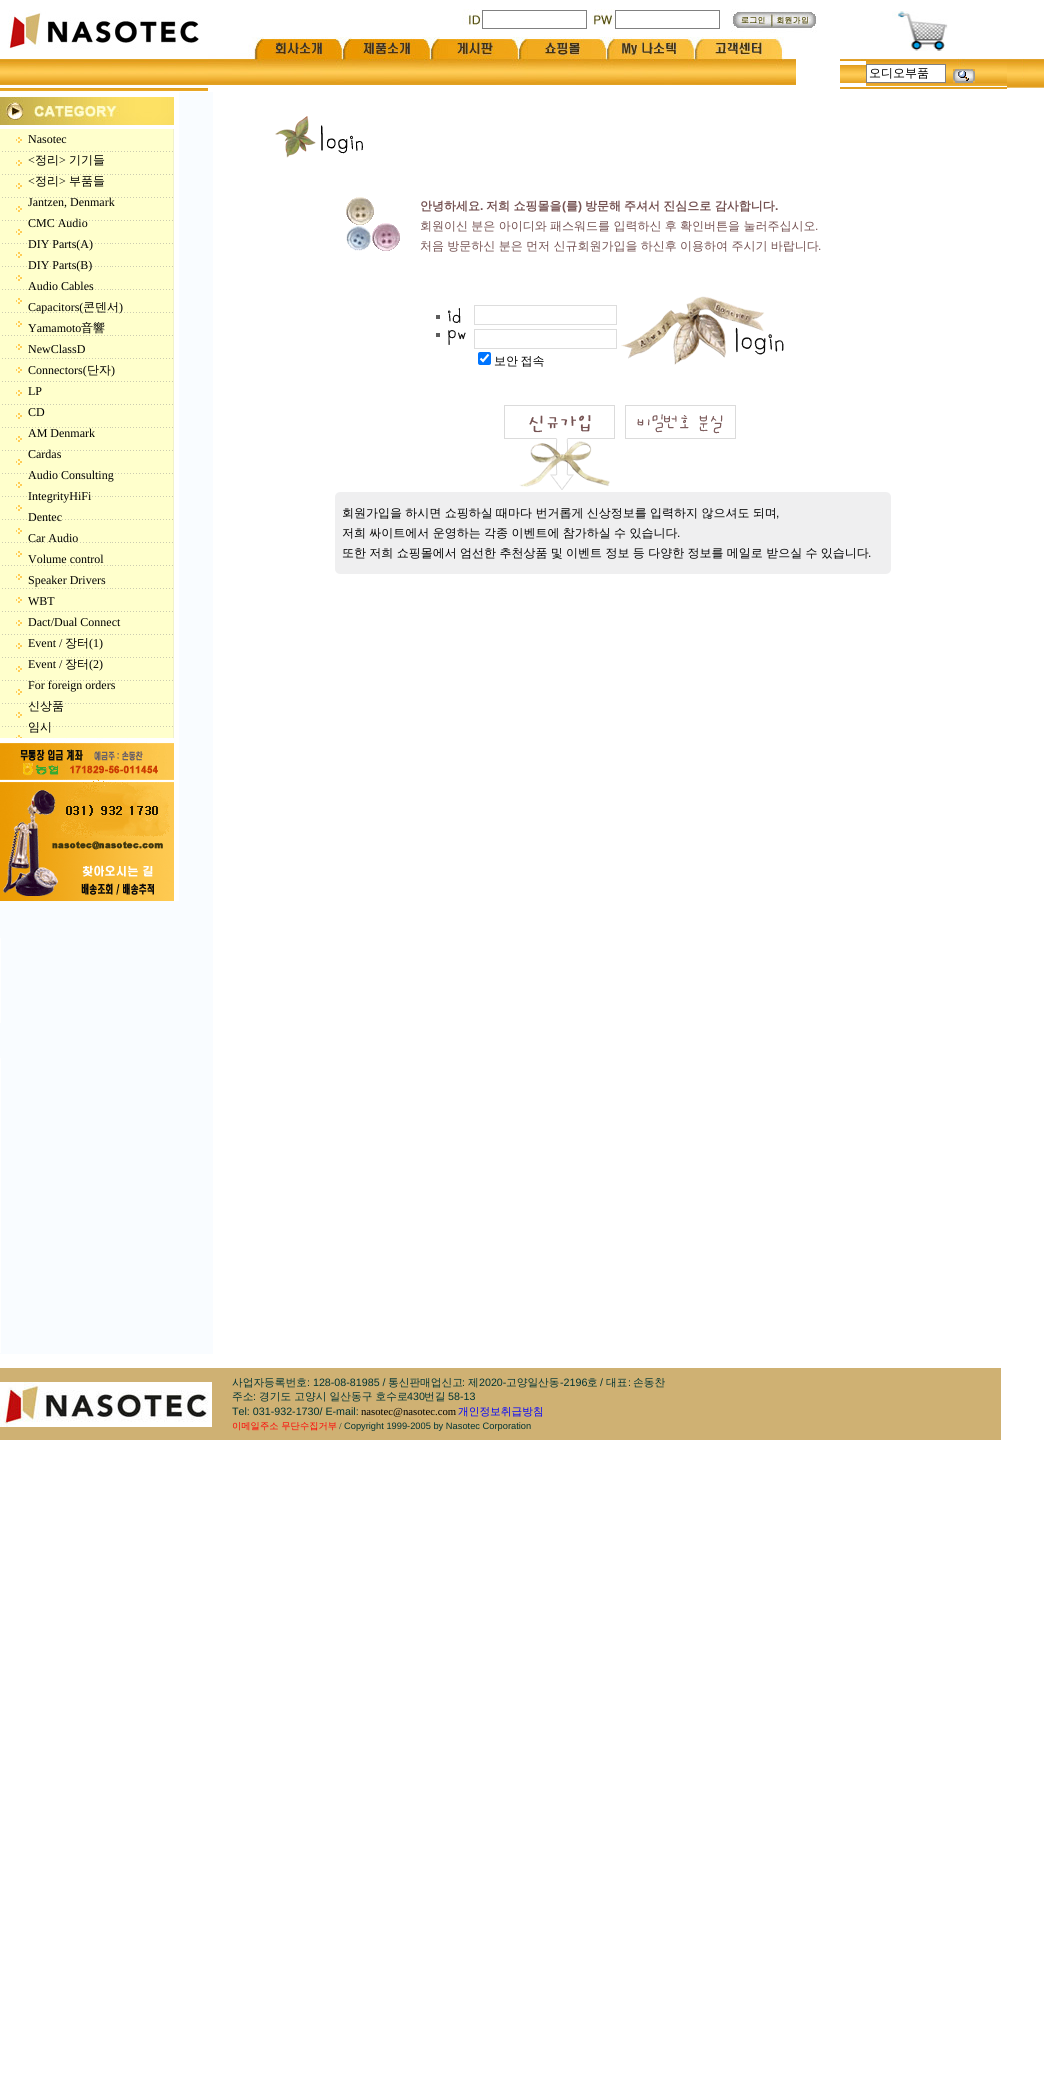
#include <cairo/cairo.h>
#include <math.h>
#include <stddef.h>

typedef struct { double x, y; const char *s; } line_t;
static cairo_t *cr;

static void rgb(unsigned color)
{
	cairo_set_source_rgb(cr, (color >> 16) / 255.0, (color >> 8 & 255) / 255.0, (color & 255) / 255.0);
}

static void tracked(double x, double y, const char *s, double letter, double word)
{
	cairo_move_to(cr, x, y);
	while (*s) {
		char ch[5] = {0};
		int n = 0;
		do ch[n++] = *s++; while ((*s & 0xC0) == 0x80);
		cairo_show_text(cr, ch);
		cairo_rel_move_to(cr, letter + word * (*ch == ' '), 0);
	}
}

static void rrect(double x, double y, double w, double h, double r)
{
	cairo_new_sub_path(cr);
	cairo_arc(cr, x + w - r, y + h - r, r, 0, M_PI / 2);
	cairo_arc(cr, x + r, y + h - r, r, M_PI / 2, M_PI);
	cairo_arc(cr, x + r, y + r, r, M_PI, 1.5 * M_PI);
	cairo_arc(cr, x + w - r, y + r, r, 1.5 * M_PI, 2 * M_PI);
	cairo_close_path(cr);
}

static void image(const char *path, double x, double y, double w, double h)
{
	cairo_surface_t *image = cairo_image_surface_create_from_png(path);
	cairo_save(cr);
	cairo_set_source_surface(cr, image, x, y);
	cairo_rectangle(cr, x, y, w, h);
	cairo_fill(cr);
	cairo_restore(cr);
	cairo_surface_destroy(image);
}

int main(void) {
	cairo_surface_t *surface = cairo_image_surface_create(CAIRO_FORMAT_RGB24, 1057, 2074);
	cr = cairo_create(surface);
	cairo_font_options_t *options = cairo_font_options_create();
	cairo_font_options_set_hint_metrics(options, CAIRO_HINT_METRICS_OFF);
	cairo_font_options_set_hint_style(options, CAIRO_HINT_STYLE_NONE);
	cairo_set_font_options(cr, options);
	cairo_set_miter_limit(cr, 4);
	rgb(0xffffff);
	cairo_paint(cr);
	image("img/1.png", 8, 10, 192, 39);
	image("img/2.png", 462, 9, 20, 16);
	cairo_rectangle(cr, 482.5, 10.5, 104, 18);
	rgb(0x808080);
	cairo_set_line_width(cr, 1);
	cairo_stroke(cr);
	image("img/3.png", 592, 9, 23, 16);
	cairo_rectangle(cr, 615.5, 10.5, 104, 18);
	cairo_stroke(cr);
	image("img/4.png", 731, 9, 40, 23);
	image("img/5.png", 771, 12, 46, 21);
	image("img/6.png", 892, 11, 56, 40);
	image("img/7.png", 208, 37, 588, 48);
	image("img/8.png", 840, 59, 7, 2);
	image("img/9.png", 0, 59, 208, 2);
	image("img/10.png", 847, 58, 197, 3);
	image("img/11.png", 0, 61, 208, 30);
	image("img/12.png", 840, 65, 7, 18);
	image("img/13.png", 847, 65, 19, 18);
	image("img/14.png", 866, 61, 141, 25);
	rgb(0xffffff);
	cairo_rectangle(cr, 866.5, 64.5, 79, 18);
	cairo_fill_preserve(cr);
	rgb(0x808080);
	cairo_stroke(cr);
	image("img/15.png", 953, 69, 22, 14);
	image("img/16.png", 1007, 61, 37, 27);
	image("img/17.png", 840, 87, 167, 2);
	rgb(0xf9fcff);
	cairo_rectangle(cr, 0, 92, 213, 1262);
	cairo_fill(cr);
	image("img/18.png", 0, 92, 179, 37);
	image("img/19.png", 0, 129, 179, 609);
	image("img/20.png", 0, 738, 179, 100);
	image("img/21.png", 0, 838, 50, 63);
	image("img/22.png", 50, 838, 129, 20);
	image("img/23.png", 50, 858, 8, 43);
	image("img/24.png", 58, 858, 121, 21);
	image("img/25.png", 58, 879, 57, 22);
	image("img/26.png", 115, 879, 64, 22);
	rgb(0xffffff);
	cairo_rectangle(cr, 0, 938, 1, 85);
	cairo_fill(cr);
	cairo_rectangle(cr, 0, 1058, 1, 295);
	cairo_fill(cr);
	image("img/27.png", 275, 116, 88, 42);
	image("img/28.png", 346, 197, 54, 54);
	image("img/29.png", 436, 308, 25, 15);
	cairo_rectangle(cr, 474.5, 305.5, 142, 19);
	rgb(0xdddddd);
	cairo_stroke(cr);
	image("img/30.png", 621, 296, 163, 69);
	image("img/31.png", 436, 330, 30, 15);
	cairo_rectangle(cr, 474.5, 329.5, 142, 19);
	cairo_stroke(cr);
	rgb(0x0075ff);
	rrect(478, 352, 13, 13, 2);
	cairo_fill(cr);
	cairo_new_path(cr);
	cairo_move_to(cr, 480.5, 358.5);
	cairo_line_to(cr, 483, 361);
	cairo_line_to(cr, 488.5, 354.5);
	rgb(0xffffff);
	cairo_set_line_width(cr, 2.1);
	cairo_stroke(cr);
	image("img/32.png", 504, 405, 111, 85);
	image("img/33.png", 625, 405, 111, 34);
	image("img/34.png", 335, 492, 556, 6);
	rgb(0xefeff0);
	cairo_rectangle(cr, 335, 498, 556, 70);
	cairo_fill(cr);
	image("img/35.png", 335, 568, 556, 6);
	rgb(0xcfb173);
	cairo_rectangle(cr, 0, 1368, 1001, 72);
	cairo_fill(cr);
	image("img/36.png", 0, 1382, 212, 45);
	cairo_select_font_face(cr, "WenQuanYi Zen Hei Medium", CAIRO_FONT_SLANT_NORMAL, CAIRO_FONT_WEIGHT_NORMAL);
	cairo_set_font_size(cr, 12);
	rgb(0x000000);
	cairo_move_to(cr, 869, 77);
	cairo_show_text(cr, "오디오부품");
	cairo_select_font_face(cr, "Liberation Serif", CAIRO_FONT_SLANT_NORMAL, CAIRO_FONT_WEIGHT_NORMAL);
	cairo_move_to(cr, 28, 143);
	cairo_show_text(cr, "Nasotec");
	cairo_move_to(cr, 28, 164);
	cairo_show_text(cr, "<");
	cairo_select_font_face(cr, "WenQuanYi Zen Hei Medium", CAIRO_FONT_SLANT_NORMAL, CAIRO_FONT_WEIGHT_NORMAL);
	cairo_move_to(cr, 35, 164);
	cairo_show_text(cr, "정리");
	cairo_select_font_face(cr, "Liberation Serif", CAIRO_FONT_SLANT_NORMAL, CAIRO_FONT_WEIGHT_NORMAL);
	cairo_move_to(cr, 59, 164);
	cairo_show_text(cr, ">");
	cairo_select_font_face(cr, "WenQuanYi Zen Hei Medium", CAIRO_FONT_SLANT_NORMAL, CAIRO_FONT_WEIGHT_NORMAL);
	cairo_move_to(cr, 69, 164);
	cairo_show_text(cr, "기기들");
	cairo_select_font_face(cr, "Liberation Serif", CAIRO_FONT_SLANT_NORMAL, CAIRO_FONT_WEIGHT_NORMAL);
	cairo_move_to(cr, 28, 185);
	cairo_show_text(cr, "<");
	cairo_select_font_face(cr, "WenQuanYi Zen Hei Medium", CAIRO_FONT_SLANT_NORMAL, CAIRO_FONT_WEIGHT_NORMAL);
	cairo_move_to(cr, 35, 185);
	cairo_show_text(cr, "정리");
	cairo_select_font_face(cr, "Liberation Serif", CAIRO_FONT_SLANT_NORMAL, CAIRO_FONT_WEIGHT_NORMAL);
	cairo_move_to(cr, 59, 185);
	cairo_show_text(cr, ">");
	cairo_select_font_face(cr, "WenQuanYi Zen Hei Medium", CAIRO_FONT_SLANT_NORMAL, CAIRO_FONT_WEIGHT_NORMAL);
	cairo_move_to(cr, 69, 185);
	cairo_show_text(cr, "부품들");
	cairo_select_font_face(cr, "Liberation Serif", CAIRO_FONT_SLANT_NORMAL, CAIRO_FONT_WEIGHT_NORMAL);
	{
		static const line_t items[] = {
			{28, 206, "Jantzen, Denmark"},
			{28, 227, "CMC Audio"},
			{28, 248, "DIY Parts(A)"},
			{28, 269, "DIY Parts(B)"},
			{28, 290, "Audio Cables"},
			{28, 311, "Capacitors("},
		};
		for (size_t i = 0; i < sizeof items / sizeof *items; i++) {
			cairo_move_to(cr, items[i].x, items[i].y);
			cairo_show_text(cr, items[i].s);
		}
	}
	cairo_select_font_face(cr, "WenQuanYi Zen Hei Medium", CAIRO_FONT_SLANT_NORMAL, CAIRO_FONT_WEIGHT_NORMAL);
	cairo_move_to(cr, 83, 311);
	cairo_show_text(cr, "콘덴서");
	cairo_select_font_face(cr, "Liberation Serif", CAIRO_FONT_SLANT_NORMAL, CAIRO_FONT_WEIGHT_NORMAL);
	cairo_move_to(cr, 119, 311);
	cairo_show_text(cr, ")");
	cairo_move_to(cr, 28, 332);
	cairo_show_text(cr, "Yamamoto");
	cairo_select_font_face(cr, "WenQuanYi Zen Hei Medium", CAIRO_FONT_SLANT_NORMAL, CAIRO_FONT_WEIGHT_NORMAL);
	cairo_move_to(cr, 81, 332);
	cairo_show_text(cr, "音響");
	cairo_select_font_face(cr, "Liberation Serif", CAIRO_FONT_SLANT_NORMAL, CAIRO_FONT_WEIGHT_NORMAL);
	cairo_move_to(cr, 28, 353);
	cairo_show_text(cr, "NewClassD");
	cairo_move_to(cr, 28, 374);
	cairo_show_text(cr, "Connectors(");
	cairo_select_font_face(cr, "WenQuanYi Zen Hei Medium", CAIRO_FONT_SLANT_NORMAL, CAIRO_FONT_WEIGHT_NORMAL);
	cairo_move_to(cr, 87, 374);
	cairo_show_text(cr, "단자");
	cairo_select_font_face(cr, "Liberation Serif", CAIRO_FONT_SLANT_NORMAL, CAIRO_FONT_WEIGHT_NORMAL);
	{
		static const line_t items[] = {
			{111, 374, ")"},
			{28, 395, "LP"},
			{28, 416, "CD"},
			{28, 437, "AM Denmark"},
			{28, 458, "Cardas"},
			{28, 479, "Audio Consulting"},
			{28, 500, "IntegrityHiFi"},
			{28, 521, "Dentec"},
			{28, 542, "Car Audio"},
			{28, 563, "Volume control"},
			{28, 584, "Speaker Drivers"},
			{28, 605, "WBT"},
			{28, 626, "Dact/Dual Connect"},
			{28, 647, "Event /"},
		};
		for (size_t i = 0; i < sizeof items / sizeof *items; i++) {
			cairo_move_to(cr, items[i].x, items[i].y);
			cairo_show_text(cr, items[i].s);
		}
	}
	cairo_select_font_face(cr, "WenQuanYi Zen Hei Medium", CAIRO_FONT_SLANT_NORMAL, CAIRO_FONT_WEIGHT_NORMAL);
	cairo_move_to(cr, 65, 647);
	cairo_show_text(cr, "장터");
	cairo_select_font_face(cr, "Liberation Serif", CAIRO_FONT_SLANT_NORMAL, CAIRO_FONT_WEIGHT_NORMAL);
	cairo_move_to(cr, 89, 647);
	cairo_show_text(cr, "(1)");
	cairo_move_to(cr, 28, 668);
	cairo_show_text(cr, "Event /");
	cairo_select_font_face(cr, "WenQuanYi Zen Hei Medium", CAIRO_FONT_SLANT_NORMAL, CAIRO_FONT_WEIGHT_NORMAL);
	cairo_move_to(cr, 65, 668);
	cairo_show_text(cr, "장터");
	cairo_select_font_face(cr, "Liberation Serif", CAIRO_FONT_SLANT_NORMAL, CAIRO_FONT_WEIGHT_NORMAL);
	cairo_move_to(cr, 89, 668);
	cairo_show_text(cr, "(2)");
	cairo_move_to(cr, 28, 689);
	cairo_show_text(cr, "For foreign orders");
	cairo_select_font_face(cr, "WenQuanYi Zen Hei Medium", CAIRO_FONT_SLANT_NORMAL, CAIRO_FONT_WEIGHT_NORMAL);
	cairo_move_to(cr, 28, 710);
	cairo_show_text(cr, "신상품");
	cairo_move_to(cr, 28, 731);
	cairo_show_text(cr, "임시");
	cairo_select_font_face(cr, "WenQuanYi Zen Hei", CAIRO_FONT_SLANT_NORMAL, CAIRO_FONT_WEIGHT_BOLD);
	rgb(0x745151);
	cairo_move_to(cr, 420, 210);
	cairo_show_text(cr, "안녕하세요");
	cairo_select_font_face(cr, "Liberation Sans", CAIRO_FONT_SLANT_NORMAL, CAIRO_FONT_WEIGHT_BOLD);
	cairo_move_to(cr, 480, 210);
	cairo_show_text(cr, ".");
	cairo_select_font_face(cr, "WenQuanYi Zen Hei", CAIRO_FONT_SLANT_NORMAL, CAIRO_FONT_WEIGHT_BOLD);
	cairo_move_to(cr, 486, 210);
	cairo_show_text(cr, "저희 쇼핑몰을");
	cairo_select_font_face(cr, "Liberation Sans", CAIRO_FONT_SLANT_NORMAL, CAIRO_FONT_WEIGHT_BOLD);
	cairo_move_to(cr, 562, 210);
	cairo_show_text(cr, "(");
	cairo_select_font_face(cr, "WenQuanYi Zen Hei", CAIRO_FONT_SLANT_NORMAL, CAIRO_FONT_WEIGHT_BOLD);
	cairo_move_to(cr, 566, 210);
	cairo_show_text(cr, "를");
	cairo_select_font_face(cr, "Liberation Sans", CAIRO_FONT_SLANT_NORMAL, CAIRO_FONT_WEIGHT_BOLD);
	cairo_move_to(cr, 578, 210);
	cairo_show_text(cr, ")");
	cairo_select_font_face(cr, "WenQuanYi Zen Hei", CAIRO_FONT_SLANT_NORMAL, CAIRO_FONT_WEIGHT_BOLD);
	cairo_move_to(cr, 585, 210);
	cairo_show_text(cr, "방문해");
	tracked(624, 210, "주셔서 진심으로 감사합니다", 0, -0.25);
	cairo_select_font_face(cr, "Liberation Sans", CAIRO_FONT_SLANT_NORMAL, CAIRO_FONT_WEIGHT_BOLD);
	cairo_move_to(cr, 775, 210);
	cairo_show_text(cr, ".");
	cairo_select_font_face(cr, "WenQuanYi Zen Hei Medium", CAIRO_FONT_SLANT_NORMAL, CAIRO_FONT_WEIGHT_NORMAL);
	tracked(420, 230, "회원이신 분은 아이디와 패스워드를 입력하신 후 확인버튼을 눌러주십시오", 0, -0.25);
	cairo_select_font_face(cr, "Liberation Sans", CAIRO_FONT_SLANT_NORMAL, CAIRO_FONT_WEIGHT_NORMAL);
	cairo_move_to(cr, 815, 230);
	cairo_show_text(cr, ".");
	cairo_select_font_face(cr, "WenQuanYi Zen Hei Medium", CAIRO_FONT_SLANT_NORMAL, CAIRO_FONT_WEIGHT_NORMAL);
	tracked(420, 250, "처음 방문하신 분은 먼저 신규회원가입을 하신후 이용하여 주시기 바랍니다", 0, -0.25);
	cairo_select_font_face(cr, "Liberation Sans", CAIRO_FONT_SLANT_NORMAL, CAIRO_FONT_WEIGHT_NORMAL);
	cairo_move_to(cr, 818, 250);
	cairo_show_text(cr, ".");
	cairo_select_font_face(cr, "WenQuanYi Zen Hei Medium", CAIRO_FONT_SLANT_NORMAL, CAIRO_FONT_WEIGHT_NORMAL);
	rgb(0x000000);
	tracked(494, 365, "보안 접속", 0, -1);
	tracked(342, 517, "회원가입을 하시면 쇼핑하실 때마다 번거롭게 신상정보를 입력하지 않으셔도 되며", 0, -0.25);
	cairo_select_font_face(cr, "Liberation Sans", CAIRO_FONT_SLANT_NORMAL, CAIRO_FONT_WEIGHT_NORMAL);
	cairo_move_to(cr, 776, 517);
	cairo_show_text(cr, ",");
	cairo_select_font_face(cr, "WenQuanYi Zen Hei Medium", CAIRO_FONT_SLANT_NORMAL, CAIRO_FONT_WEIGHT_NORMAL);
	tracked(342, 537, "저희 싸이트에서 운영하는 각종 이벤트에 참가하실 수 있습니다", 0, -0.25);
	cairo_select_font_face(cr, "Liberation Sans", CAIRO_FONT_SLANT_NORMAL, CAIRO_FONT_WEIGHT_NORMAL);
	cairo_move_to(cr, 677, 537);
	cairo_show_text(cr, ".");
	cairo_select_font_face(cr, "WenQuanYi Zen Hei Medium", CAIRO_FONT_SLANT_NORMAL, CAIRO_FONT_WEIGHT_NORMAL);
	tracked(342, 557, "또한 저희 쇼핑몰에서 엄선한 추천상품 및 이벤트 정보 등 다양한 정보를 메일로 받으실 수 있습니다", 0, -0.25);
	cairo_select_font_face(cr, "Liberation Sans", CAIRO_FONT_SLANT_NORMAL, CAIRO_FONT_WEIGHT_NORMAL);
	cairo_move_to(cr, 868, 557);
	cairo_show_text(cr, ".");
	cairo_select_font_face(cr, "WenQuanYi Zen Hei Medium", CAIRO_FONT_SLANT_NORMAL, CAIRO_FONT_WEIGHT_NORMAL);
	cairo_set_font_size(cr, 10.7);
	rgb(0x003333);
	cairo_move_to(cr, 232, 1386);
	cairo_show_text(cr, "사업자등록번호");
	cairo_select_font_face(cr, "Liberation Sans", CAIRO_FONT_SLANT_NORMAL, CAIRO_FONT_WEIGHT_NORMAL);
	cairo_move_to(cr, 307, 1386);
	cairo_show_text(cr, ": 128-08-81985 /");
	cairo_select_font_face(cr, "WenQuanYi Zen Hei Medium", CAIRO_FONT_SLANT_NORMAL, CAIRO_FONT_WEIGHT_NORMAL);
	cairo_move_to(cr, 388, 1386);
	cairo_show_text(cr, "통신판매업신고");
	cairo_select_font_face(cr, "Liberation Sans", CAIRO_FONT_SLANT_NORMAL, CAIRO_FONT_WEIGHT_NORMAL);
	cairo_move_to(cr, 462, 1386);
	cairo_show_text(cr, ":");
	cairo_select_font_face(cr, "WenQuanYi Zen Hei Medium", CAIRO_FONT_SLANT_NORMAL, CAIRO_FONT_WEIGHT_NORMAL);
	cairo_move_to(cr, 468, 1386);
	cairo_show_text(cr, "제");
	cairo_select_font_face(cr, "Liberation Sans", CAIRO_FONT_SLANT_NORMAL, CAIRO_FONT_WEIGHT_NORMAL);
	cairo_move_to(cr, 479, 1386);
	cairo_show_text(cr, "2020-");
	cairo_select_font_face(cr, "WenQuanYi Zen Hei Medium", CAIRO_FONT_SLANT_NORMAL, CAIRO_FONT_WEIGHT_NORMAL);
	cairo_move_to(cr, 506, 1386);
	cairo_show_text(cr, "고양일산동");
	cairo_select_font_face(cr, "Liberation Sans", CAIRO_FONT_SLANT_NORMAL, CAIRO_FONT_WEIGHT_NORMAL);
	cairo_move_to(cr, 560, 1386);
	cairo_show_text(cr, "-2196");
	cairo_select_font_face(cr, "WenQuanYi Zen Hei Medium", CAIRO_FONT_SLANT_NORMAL, CAIRO_FONT_WEIGHT_NORMAL);
	cairo_move_to(cr, 587, 1386);
	cairo_show_text(cr, "호");
	cairo_select_font_face(cr, "Liberation Sans", CAIRO_FONT_SLANT_NORMAL, CAIRO_FONT_WEIGHT_NORMAL);
	cairo_move_to(cr, 600, 1386);
	cairo_show_text(cr, "/");
	cairo_select_font_face(cr, "WenQuanYi Zen Hei Medium", CAIRO_FONT_SLANT_NORMAL, CAIRO_FONT_WEIGHT_NORMAL);
	cairo_move_to(cr, 606, 1386);
	cairo_show_text(cr, "대표");
	cairo_select_font_face(cr, "Liberation Sans", CAIRO_FONT_SLANT_NORMAL, CAIRO_FONT_WEIGHT_NORMAL);
	cairo_move_to(cr, 628, 1386);
	cairo_show_text(cr, ":");
	cairo_select_font_face(cr, "WenQuanYi Zen Hei Medium", CAIRO_FONT_SLANT_NORMAL, CAIRO_FONT_WEIGHT_NORMAL);
	cairo_move_to(cr, 633, 1386);
	cairo_show_text(cr, "손동찬");
	cairo_move_to(cr, 232, 1400);
	cairo_show_text(cr, "주소");
	cairo_select_font_face(cr, "Liberation Sans", CAIRO_FONT_SLANT_NORMAL, CAIRO_FONT_WEIGHT_NORMAL);
	cairo_move_to(cr, 253, 1400);
	cairo_show_text(cr, ":");
	cairo_select_font_face(cr, "WenQuanYi Zen Hei Medium", CAIRO_FONT_SLANT_NORMAL, CAIRO_FONT_WEIGHT_NORMAL);
	cairo_move_to(cr, 259, 1400);
	cairo_show_text(cr, "경기도 고양시 일산동구 호수로");
	cairo_select_font_face(cr, "Liberation Sans", CAIRO_FONT_SLANT_NORMAL, CAIRO_FONT_WEIGHT_NORMAL);
	cairo_move_to(cr, 407, 1400);
	cairo_show_text(cr, "430");
	cairo_select_font_face(cr, "WenQuanYi Zen Hei Medium", CAIRO_FONT_SLANT_NORMAL, CAIRO_FONT_WEIGHT_NORMAL);
	cairo_move_to(cr, 424, 1400);
	cairo_show_text(cr, "번길");
	cairo_select_font_face(cr, "Liberation Sans", CAIRO_FONT_SLANT_NORMAL, CAIRO_FONT_WEIGHT_NORMAL);
	cairo_move_to(cr, 448, 1400);
	cairo_show_text(cr, "58-13");
	cairo_move_to(cr, 232, 1415);
	cairo_show_text(cr, "Tel: 031-932-1730/ E-mail:");
	cairo_select_font_face(cr, "Liberation Serif", CAIRO_FONT_SLANT_NORMAL, CAIRO_FONT_WEIGHT_NORMAL);
	rgb(0x000000);
	cairo_move_to(cr, 361, 1415);
	cairo_show_text(cr, "nasotec@nasotec.com");
	cairo_select_font_face(cr, "WenQuanYi Zen Hei Medium", CAIRO_FONT_SLANT_NORMAL, CAIRO_FONT_WEIGHT_NORMAL);
	rgb(0x0000ff);
	cairo_move_to(cr, 458, 1415);
	cairo_show_text(cr, "개인정보취급방침");
	cairo_set_font_size(cr, 9.3);
	rgb(0xff0000);
	cairo_move_to(cr, 232, 1429);
	cairo_show_text(cr, "이메일주소 무단수집거부");
	cairo_select_font_face(cr, "Liberation Serif", CAIRO_FONT_SLANT_NORMAL, CAIRO_FONT_WEIGHT_NORMAL);
	rgb(0x003333);
	cairo_move_to(cr, 339, 1429);
	cairo_show_text(cr, "/");
	cairo_select_font_face(cr, "Liberation Sans", CAIRO_FONT_SLANT_NORMAL, CAIRO_FONT_WEIGHT_NORMAL);
	cairo_move_to(cr, 344, 1429);
	cairo_show_text(cr, "Copyright 1999-2005 by Nasotec Corporation");
	cairo_surface_write_to_png(surface, "page.png");
	cairo_font_options_destroy(options);
	cairo_destroy(cr);
	cairo_surface_destroy(surface);
	return 0;
}
